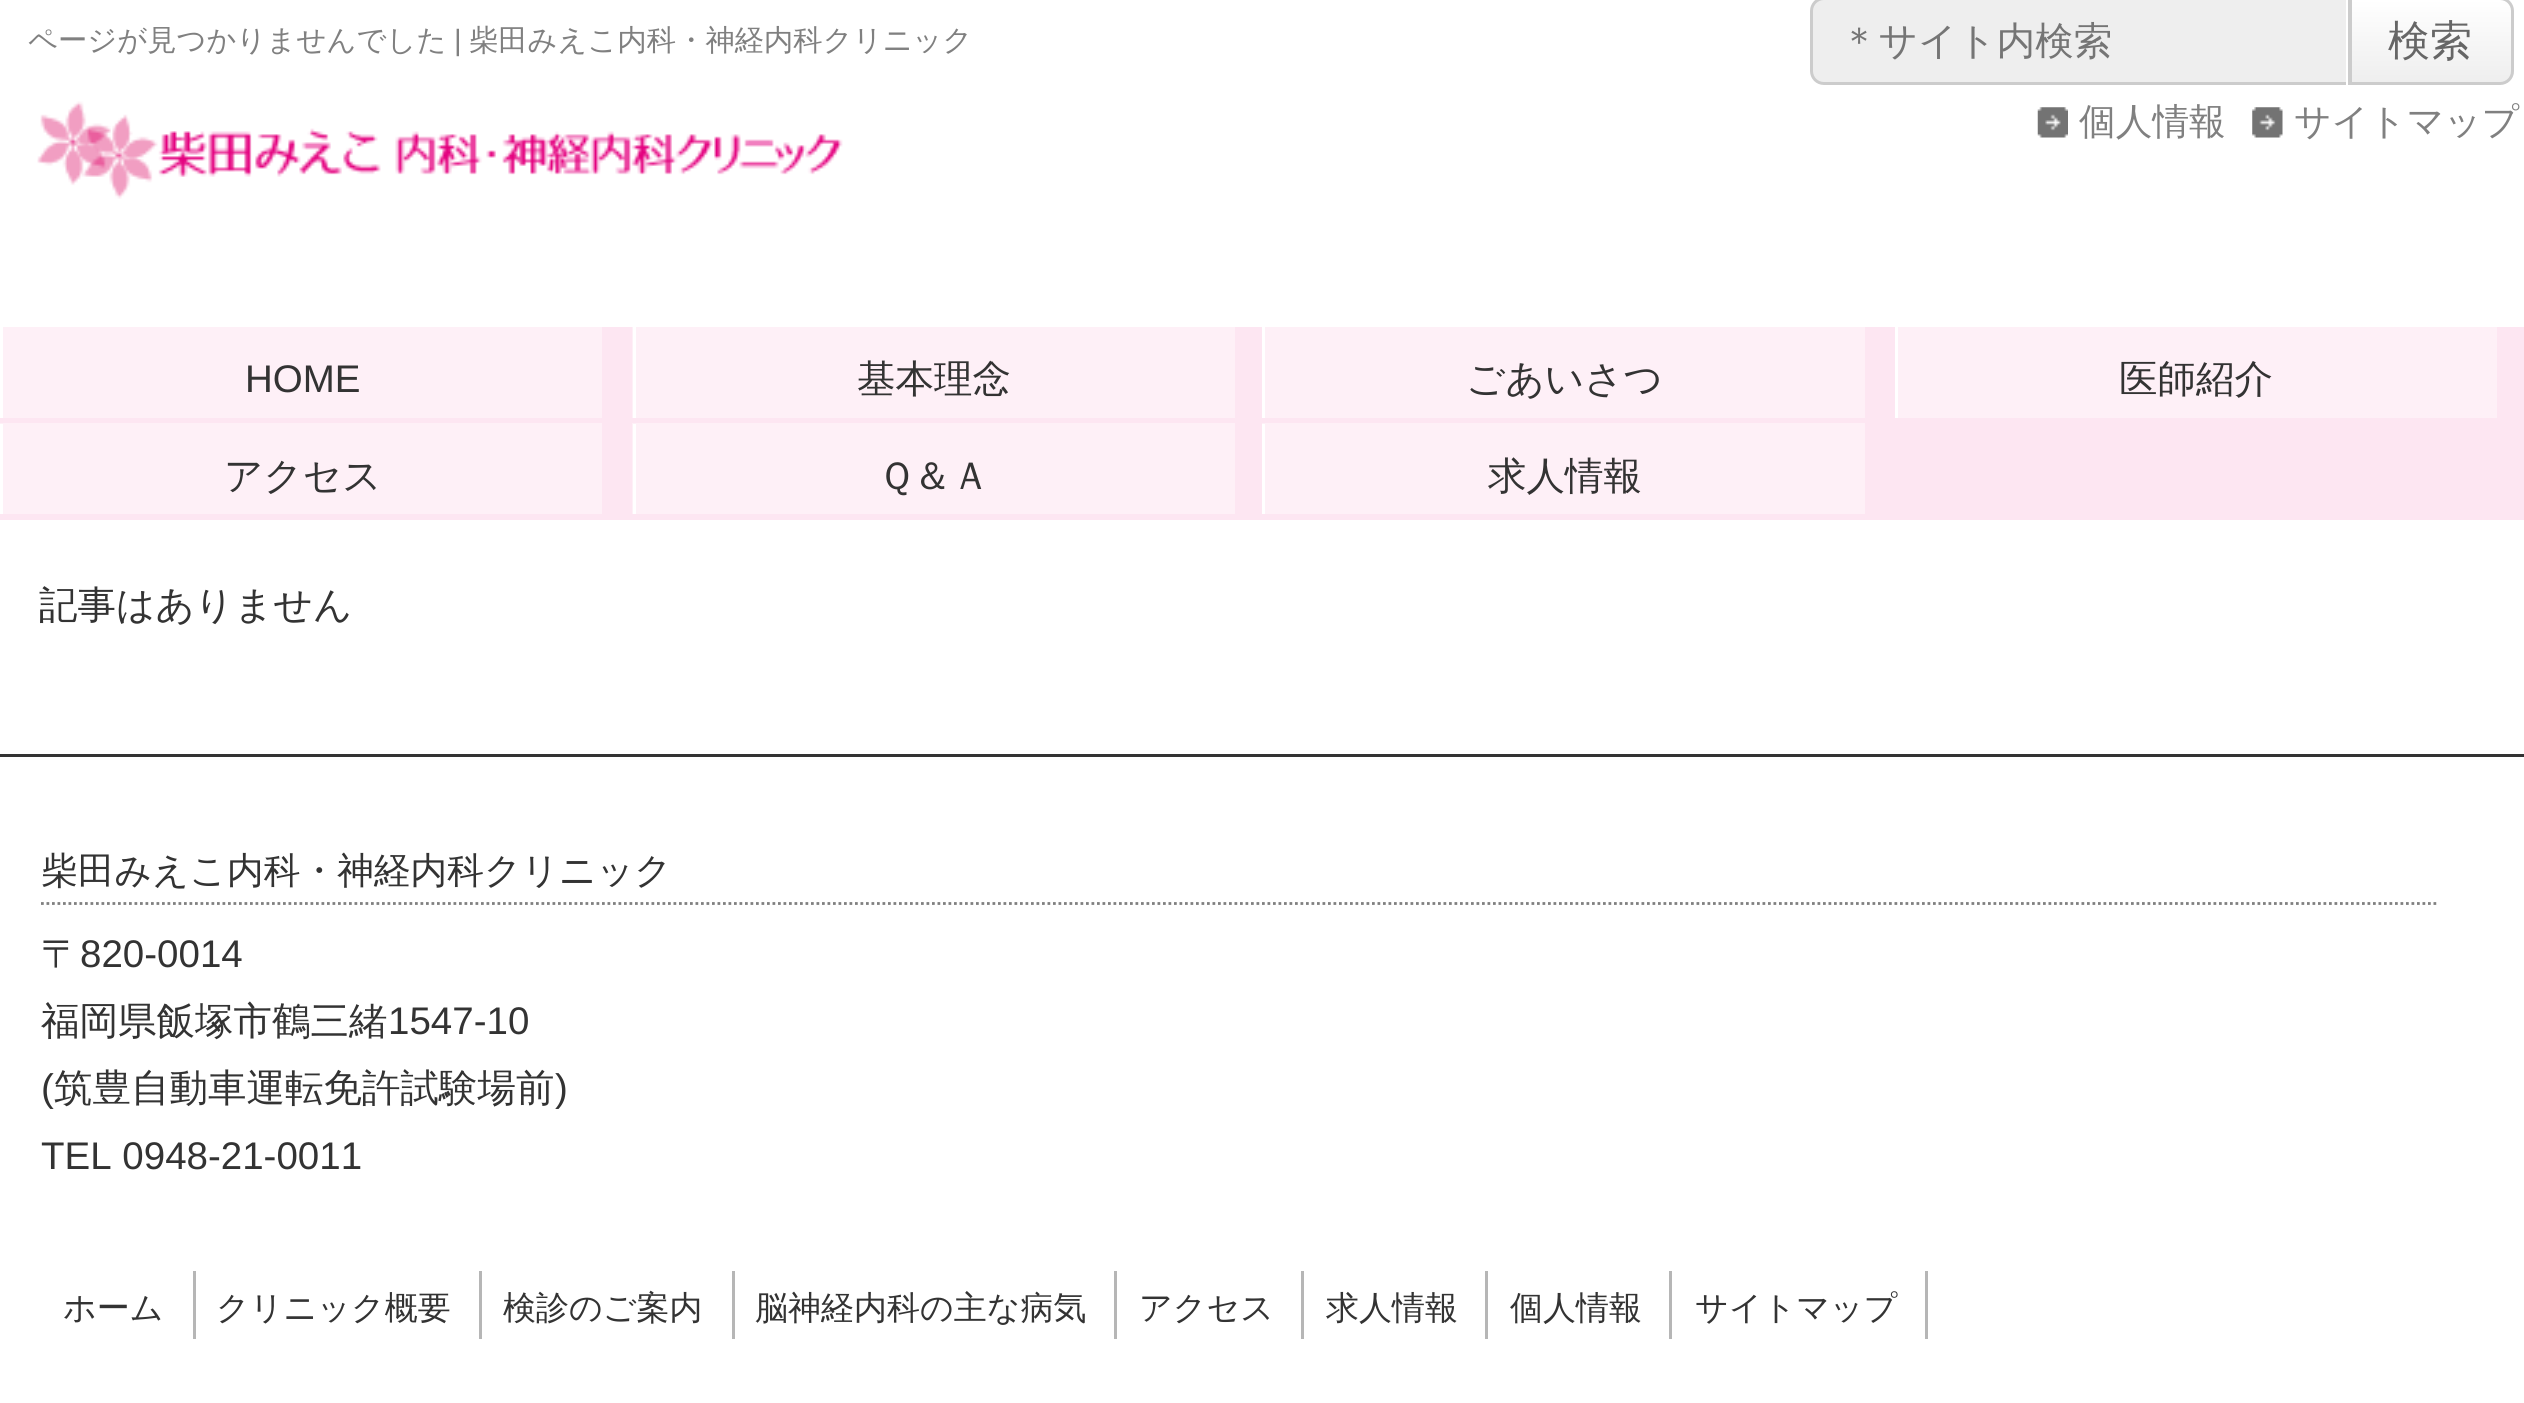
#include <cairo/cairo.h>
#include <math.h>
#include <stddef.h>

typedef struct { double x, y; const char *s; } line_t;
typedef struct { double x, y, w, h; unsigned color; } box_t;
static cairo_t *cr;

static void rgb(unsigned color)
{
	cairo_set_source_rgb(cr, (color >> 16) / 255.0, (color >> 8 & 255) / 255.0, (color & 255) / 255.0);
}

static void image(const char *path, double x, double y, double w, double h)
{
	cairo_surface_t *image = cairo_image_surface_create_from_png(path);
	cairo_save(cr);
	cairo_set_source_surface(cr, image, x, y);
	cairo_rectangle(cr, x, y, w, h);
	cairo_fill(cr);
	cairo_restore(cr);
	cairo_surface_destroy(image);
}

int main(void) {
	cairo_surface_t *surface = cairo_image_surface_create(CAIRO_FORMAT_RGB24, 2524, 1403);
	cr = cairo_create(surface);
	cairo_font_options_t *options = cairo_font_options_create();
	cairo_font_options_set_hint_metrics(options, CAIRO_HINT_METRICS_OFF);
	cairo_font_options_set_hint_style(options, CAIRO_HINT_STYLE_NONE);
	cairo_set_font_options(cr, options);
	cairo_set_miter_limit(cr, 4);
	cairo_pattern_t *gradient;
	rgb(0xffffff);
	cairo_paint(cr);
	rgb(0xeeeeee);
	cairo_new_path(cr);
	cairo_move_to(cr, 1824, -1.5);
	cairo_line_to(cr, 2349.5, -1.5);
	cairo_line_to(cr, 2349.5, 83.5);
	cairo_line_to(cr, 1824, 83.5);
	cairo_curve_to(cr, 1817, 83.5, 1811.5, 78, 1811.5, 71);
	cairo_line_to(cr, 1811.5, 11);
	cairo_curve_to(cr, 1811.5, 4, 1817, -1.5, 1824, -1.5);
	cairo_close_path(cr);
	cairo_fill_preserve(cr);
	rgb(0xcccccc);
	cairo_set_line_width(cr, 3);
	cairo_stroke(cr);
	rgb(0xffffff);
	cairo_new_path(cr);
	cairo_move_to(cr, 2346, -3);
	cairo_line_to(cr, 2346, 85);
	cairo_line_to(cr, 2348, 85);
	cairo_line_to(cr, 2348, -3);
	cairo_line_to(cr, 2500, -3);
	cairo_line_to(cr, 2497, -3);
	cairo_close_path(cr);
	cairo_fill(cr);
	cairo_save(cr);
	cairo_new_path(cr);
	cairo_move_to(cr, 2349, -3);
	cairo_line_to(cr, 2500, -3);
	cairo_curve_to(cr, 2507.5, -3, 2514, 3.5, 2514, 11);
	cairo_line_to(cr, 2514, 71);
	cairo_curve_to(cr, 2514, 78.5, 2507.5, 85, 2500, 85);
	cairo_line_to(cr, 2349, 85);
	cairo_close_path(cr);
	cairo_clip(cr);
	gradient = cairo_pattern_create_linear(2431, 0, 2431, 83);
	cairo_pattern_add_color_stop_rgba(gradient, 0, 1, 1, 1, 1);
	cairo_pattern_add_color_stop_rgba(gradient, 1, 0.933, 0.933, 0.933, 1);
	cairo_set_source(cr, gradient);
	cairo_pattern_destroy(gradient);
	cairo_rectangle(cr, 2352, 0, 162, 83);
	cairo_fill(cr);
	cairo_restore(cr);
	cairo_new_path(cr);
	cairo_move_to(cr, 2350.5, -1.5);
	cairo_line_to(cr, 2500, -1.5);
	cairo_curve_to(cr, 2507, -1.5, 2512.5, 4, 2512.5, 11);
	cairo_line_to(cr, 2512.5, 71);
	cairo_curve_to(cr, 2512.5, 78, 2507, 83.5, 2500, 83.5);
	cairo_line_to(cr, 2350.5, 83.5);
	cairo_close_path(cr);
	rgb(0xcccccc);
	cairo_stroke(cr);
	image("img/1.png", 2037, 107, 31, 31);
	image("img/2.png", 2252, 107, 31, 31);
	image("img/3.png", 37, 101, 806, 98);
	{
		static const box_t items[] = {
			{0, 327, 2524, 193, 0xfde6f2},
			{3, 327, 599, 91, 0xfef0f7},
			{0, 327, 3, 91, 0xffffff},
			{632, 327, 603, 91, 0xfef0f7},
			{633, 327, 3, 91, 0xffffff},
			{1265, 327, 600, 91, 0xfef0f7},
			{1262, 327, 3, 91, 0xffffff},
			{1898, 327, 599, 91, 0xfef0f7},
			{1895, 327, 3, 91, 0xffffff},
			{0, 423, 602, 91, 0xfef0f7},
			{0, 424, 3, 90, 0xffffff},
			{632, 423, 603, 91, 0xfef0f7},
			{633, 424, 3, 90, 0xffffff},
			{1262, 423, 603, 91, 0xfef0f7},
			{1262, 424, 3, 90, 0xffffff},
			{0, 754, 2524, 3, 0x333333},
		};
		for (size_t i = 0; i < sizeof items / sizeof *items; i++) {
			rgb(items[i].color);
			cairo_rectangle(cr, items[i].x, items[i].y, items[i].w, items[i].h);
			cairo_fill(cr);
		}
	}
	cairo_new_path(cr);
	cairo_move_to(cr, 41, 903.5);
	cairo_line_to(cr, 2439, 903.5);
	rgb(0x808080);
	cairo_set_line_width(cr, 2.8);
	cairo_set_dash(cr, (double[]){2.75, 2.75}, 2, 0);
	cairo_stroke(cr);
	{
		static const box_t items[] = {
			{193, 1271, 3, 68, 0xb6b6b6},
			{479, 1271, 3, 68, 0xb6b6b6},
			{732, 1271, 3, 68, 0xb6b6b6},
			{1114, 1271, 3, 68, 0xb6b6b6},
			{1301, 1271, 3, 68, 0xb6b6b6},
			{1485, 1271, 3, 68, 0xb6b6b6},
			{1669, 1271, 3, 68, 0xb6b6b6},
			{1925, 1271, 3, 68, 0xb6b6b6},
		};
		for (size_t i = 0; i < sizeof items / sizeof *items; i++) {
			rgb(items[i].color);
			cairo_rectangle(cr, items[i].x, items[i].y, items[i].w, items[i].h);
			cairo_fill(cr);
		}
	}
	cairo_select_font_face(cr, "WenQuanYi Zen Hei Medium", CAIRO_FONT_SLANT_NORMAL, CAIRO_FONT_WEIGHT_NORMAL);
	cairo_set_font_size(cr, 29.3);
	rgb(0x808080);
	cairo_move_to(cr, 28, 50);
	cairo_show_text(cr, "ページが見つかりませんでした");
	cairo_select_font_face(cr, "Liberation Sans", CAIRO_FONT_SLANT_NORMAL, CAIRO_FONT_WEIGHT_NORMAL);
	cairo_move_to(cr, 454, 50);
	cairo_show_text(cr, "|");
	cairo_select_font_face(cr, "WenQuanYi Zen Hei Medium", CAIRO_FONT_SLANT_NORMAL, CAIRO_FONT_WEIGHT_NORMAL);
	cairo_move_to(cr, 469, 50);
	cairo_show_text(cr, "柴田みえこ内科・神経内科クリニック");
	cairo_set_font_size(cr, 38.5);
	rgb(0x757575);
	cairo_move_to(cr, 1840, 54);
	cairo_show_text(cr, "＊サイト内検索");
	cairo_set_font_size(cr, 42);
	rgb(0x666666);
	cairo_move_to(cr, 2388, 55);
	cairo_show_text(cr, "検索");
	cairo_set_font_size(cr, 36.7);
	rgb(0x808080);
	cairo_move_to(cr, 2079, 134);
	cairo_show_text(cr, "個人情報");
	cairo_move_to(cr, 2294, 134);
	cairo_show_text(cr, "サイトマップ");
	cairo_select_font_face(cr, "Liberation Sans", CAIRO_FONT_SLANT_NORMAL, CAIRO_FONT_WEIGHT_NORMAL);
	cairo_set_font_size(cr, 38.5);
	rgb(0x333333);
	cairo_move_to(cr, 245, 392);
	cairo_show_text(cr, "HOME");
	cairo_select_font_face(cr, "WenQuanYi Zen Hei Medium", CAIRO_FONT_SLANT_NORMAL, CAIRO_FONT_WEIGHT_NORMAL);
	{
		static const line_t items[] = {
			{857, 392, "基本理念"},
			{1466, 392, "ごあいさつ"},
			{2119, 392, "医師紹介"},
			{224, 489, "アクセス"},
			{878, 489, "Ｑ＆Ａ"},
			{1488, 489, "求人情報"},
			{39, 618, "記事はありません"},
		};
		for (size_t i = 0; i < sizeof items / sizeof *items; i++) {
			cairo_move_to(cr, items[i].x, items[i].y);
			cairo_show_text(cr, items[i].s);
		}
	}
	cairo_set_font_size(cr, 36.7);
	cairo_move_to(cr, 41, 883);
	cairo_show_text(cr, "柴田みえこ内科・神経内科クリニック");
	cairo_set_font_size(cr, 38.5);
	cairo_move_to(cr, 41, 967);
	cairo_show_text(cr, "〒");
	cairo_select_font_face(cr, "Liberation Sans", CAIRO_FONT_SLANT_NORMAL, CAIRO_FONT_WEIGHT_NORMAL);
	cairo_move_to(cr, 80, 967);
	cairo_show_text(cr, "820-0014");
	cairo_select_font_face(cr, "WenQuanYi Zen Hei Medium", CAIRO_FONT_SLANT_NORMAL, CAIRO_FONT_WEIGHT_NORMAL);
	cairo_move_to(cr, 41, 1034);
	cairo_show_text(cr, "福岡県飯塚市鶴三緒");
	cairo_select_font_face(cr, "Liberation Sans", CAIRO_FONT_SLANT_NORMAL, CAIRO_FONT_WEIGHT_NORMAL);
	cairo_move_to(cr, 388, 1034);
	cairo_show_text(cr, "1547-10");
	cairo_move_to(cr, 41, 1101);
	cairo_show_text(cr, "(");
	cairo_select_font_face(cr, "WenQuanYi Zen Hei Medium", CAIRO_FONT_SLANT_NORMAL, CAIRO_FONT_WEIGHT_NORMAL);
	cairo_move_to(cr, 54, 1101);
	cairo_show_text(cr, "筑豊自動車運転免許試験場前");
	cairo_select_font_face(cr, "Liberation Sans", CAIRO_FONT_SLANT_NORMAL, CAIRO_FONT_WEIGHT_NORMAL);
	cairo_move_to(cr, 555, 1101);
	cairo_show_text(cr, ")");
	cairo_move_to(cr, 41, 1169);
	cairo_show_text(cr, "TEL 0948-21-0011");
	cairo_select_font_face(cr, "WenQuanYi Zen Hei Medium", CAIRO_FONT_SLANT_NORMAL, CAIRO_FONT_WEIGHT_NORMAL);
	cairo_set_font_size(cr, 33);
	{
		static const line_t items[] = {
			{63, 1319, "ホーム"},
			{216, 1319, "クリニック概要"},
			{503, 1319, "検診のご案内"},
			{755, 1319, "脳神経内科の主な病気"},
			{1139, 1319, "アクセス"},
			{1326, 1319, "求人情報"},
			{1510, 1319, "個人情報"},
			{1695, 1319, "サイトマップ"},
		};
		for (size_t i = 0; i < sizeof items / sizeof *items; i++) {
			cairo_move_to(cr, items[i].x, items[i].y);
			cairo_show_text(cr, items[i].s);
		}
	}
	cairo_surface_write_to_png(surface, "page.png");
	cairo_font_options_destroy(options);
	cairo_destroy(cr);
	cairo_surface_destroy(surface);
	return 0;
}
